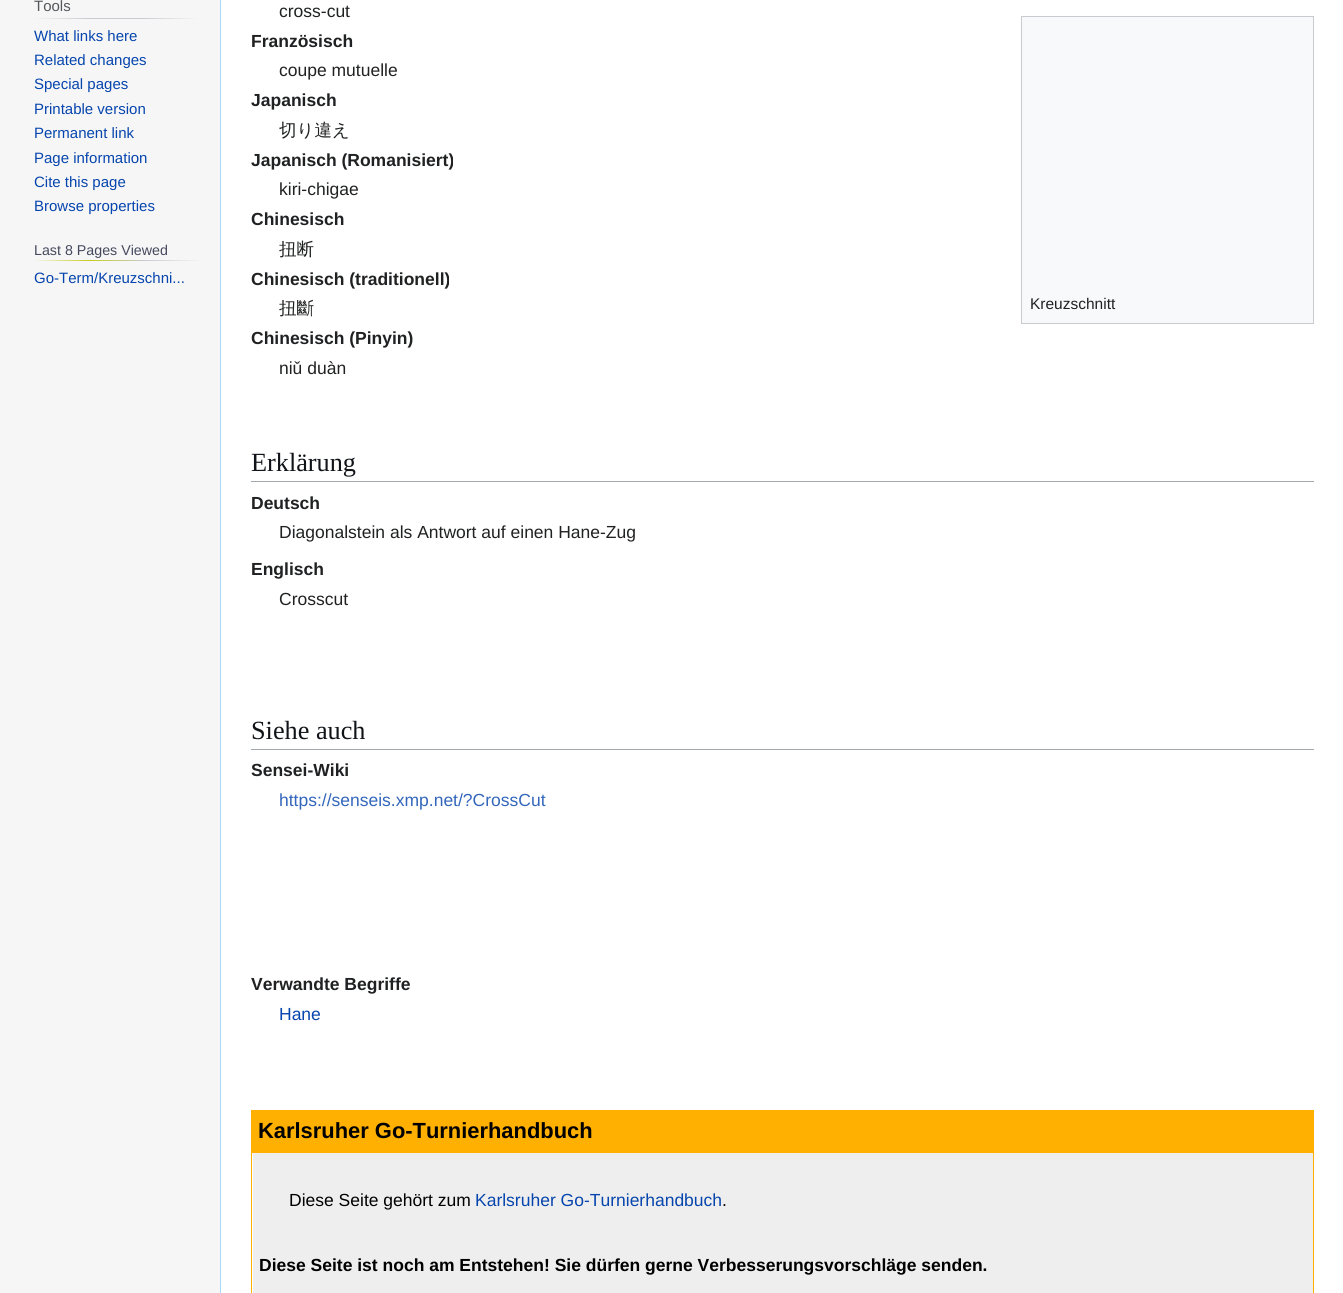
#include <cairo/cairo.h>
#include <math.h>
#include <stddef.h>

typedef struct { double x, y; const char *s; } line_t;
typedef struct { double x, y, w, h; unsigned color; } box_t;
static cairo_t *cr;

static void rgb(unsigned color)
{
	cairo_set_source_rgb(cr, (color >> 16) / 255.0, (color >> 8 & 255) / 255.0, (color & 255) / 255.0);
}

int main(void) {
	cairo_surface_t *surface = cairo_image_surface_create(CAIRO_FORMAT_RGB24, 1343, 1293);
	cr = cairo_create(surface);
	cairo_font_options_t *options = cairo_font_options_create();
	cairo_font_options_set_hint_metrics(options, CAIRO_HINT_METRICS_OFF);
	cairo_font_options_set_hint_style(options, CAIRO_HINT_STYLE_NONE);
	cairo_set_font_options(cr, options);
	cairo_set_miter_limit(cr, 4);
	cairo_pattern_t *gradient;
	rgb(0xf6f6f6);
	cairo_paint(cr);
	gradient = cairo_pattern_create_linear(34, 18, 198, 18);
	cairo_pattern_add_color_stop_rgba(gradient, 0, 0.965, 0.965, 0.965, 1);
	cairo_pattern_add_color_stop_rgba(gradient, 0.33, 0.784, 0.8, 0.82, 1);
	cairo_pattern_add_color_stop_rgba(gradient, 0.66, 0.784, 0.8, 0.82, 1);
	cairo_pattern_add_color_stop_rgba(gradient, 1, 0.965, 0.965, 0.965, 1);
	cairo_set_source(cr, gradient);
	cairo_pattern_destroy(gradient);
	cairo_rectangle(cr, 34, 18, 164, 1);
	cairo_fill(cr);
	gradient = cairo_pattern_create_linear(34, 261, 203, 261);
	cairo_pattern_add_color_stop_rgba(gradient, 0, 0.965, 0.965, 0.965, 1);
	cairo_pattern_add_color_stop_rgba(gradient, 0.33, 0.784, 0.8, 0.114, 1);
	cairo_pattern_add_color_stop_rgba(gradient, 0.66, 0.784, 0.8, 0.82, 1);
	cairo_pattern_add_color_stop_rgba(gradient, 1, 0.965, 0.965, 0.965, 1);
	cairo_set_source(cr, gradient);
	cairo_pattern_destroy(gradient);
	cairo_rectangle(cr, 34, 260, 169, 1);
	cairo_fill(cr);
	{
		static const box_t items[] = {
			{221, 0, 1122, 1293, 0xffffff},
			{220, 0, 1, 1293, 0xa7d7f9},
			{1022, 17, 291, 306, 0xf8f9fa},
			{1021, 16, 293, 1, 0xc8ccd1},
			{1021, 323, 293, 1, 0xc8ccd1},
			{1313, 16, 1, 308, 0xc8ccd1},
			{1021, 16, 1, 308, 0xc8ccd1},
			{251, 481, 1063, 1, 0xa2a9b1},
			{251, 749, 1063, 1, 0xa2a9b1},
			{251, 1110, 1063, 43, 0xffb000},
			{253, 1153, 1060, 140, 0xeeeeee},
			{1313, 1153, 1, 140, 0xffb000},
			{251, 1153, 1, 140, 0xffb000},
		};
		for (size_t i = 0; i < sizeof items / sizeof *items; i++) {
			rgb(items[i].color);
			cairo_rectangle(cr, items[i].x, items[i].y, items[i].w, items[i].h);
			cairo_fill(cr);
		}
	}
	cairo_select_font_face(cr, "Liberation Sans", CAIRO_FONT_SLANT_NORMAL, CAIRO_FONT_WEIGHT_NORMAL);
	cairo_set_font_size(cr, 15);
	rgb(0x54595d);
	cairo_move_to(cr, 34, 11);
	cairo_show_text(cr, "Tools");
	rgb(0x0645ad);
	{
		static const line_t items[] = {
			{34, 41, "What links here"},
			{34, 65, "Related changes"},
			{34, 89, "Special pages"},
			{34, 114, "Printable version"},
			{34, 138, "Permanent link"},
			{34, 163, "Page information"},
			{34, 187, "Cite this page"},
			{34, 211, "Browse properties"},
		};
		for (size_t i = 0; i < sizeof items / sizeof *items; i++) {
			cairo_move_to(cr, items[i].x, items[i].y);
			cairo_show_text(cr, items[i].s);
		}
	}
	cairo_set_font_size(cr, 14.25);
	rgb(0x45495d);
	cairo_move_to(cr, 34, 255);
	cairo_show_text(cr, "Last 8 Pages Viewed");
	cairo_set_font_size(cr, 15);
	rgb(0x0645ad);
	cairo_move_to(cr, 34, 283);
	cairo_show_text(cr, "Go-Term/Kreuzschni...");
	cairo_set_font_size(cr, 17.5);
	rgb(0x202122);
	cairo_move_to(cr, 279, 17);
	cairo_show_text(cr, "cross-cut");
	cairo_select_font_face(cr, "Liberation Sans", CAIRO_FONT_SLANT_NORMAL, CAIRO_FONT_WEIGHT_BOLD);
	cairo_move_to(cr, 251, 47);
	cairo_show_text(cr, "Französisch");
	cairo_select_font_face(cr, "Liberation Sans", CAIRO_FONT_SLANT_NORMAL, CAIRO_FONT_WEIGHT_NORMAL);
	cairo_move_to(cr, 279, 76);
	cairo_show_text(cr, "coupe mutuelle");
	cairo_select_font_face(cr, "Liberation Sans", CAIRO_FONT_SLANT_NORMAL, CAIRO_FONT_WEIGHT_BOLD);
	cairo_move_to(cr, 251, 106);
	cairo_show_text(cr, "Japanisch");
	cairo_select_font_face(cr, "WenQuanYi Zen Hei Medium", CAIRO_FONT_SLANT_NORMAL, CAIRO_FONT_WEIGHT_NORMAL);
	cairo_move_to(cr, 279, 136);
	cairo_show_text(cr, "切り違え");
	cairo_select_font_face(cr, "Liberation Sans", CAIRO_FONT_SLANT_NORMAL, CAIRO_FONT_WEIGHT_BOLD);
	cairo_move_to(cr, 251, 166);
	cairo_show_text(cr, "Japanisch (Romanisiert)");
	cairo_select_font_face(cr, "Liberation Sans", CAIRO_FONT_SLANT_NORMAL, CAIRO_FONT_WEIGHT_NORMAL);
	cairo_move_to(cr, 279, 195);
	cairo_show_text(cr, "kiri-chigae");
	cairo_select_font_face(cr, "Liberation Sans", CAIRO_FONT_SLANT_NORMAL, CAIRO_FONT_WEIGHT_BOLD);
	cairo_move_to(cr, 251, 225);
	cairo_show_text(cr, "Chinesisch");
	cairo_select_font_face(cr, "WenQuanYi Zen Hei Medium", CAIRO_FONT_SLANT_NORMAL, CAIRO_FONT_WEIGHT_NORMAL);
	cairo_move_to(cr, 279, 255);
	cairo_show_text(cr, "扭断");
	cairo_select_font_face(cr, "Liberation Sans", CAIRO_FONT_SLANT_NORMAL, CAIRO_FONT_WEIGHT_BOLD);
	cairo_move_to(cr, 251, 285);
	cairo_show_text(cr, "Chinesisch (traditionell)");
	cairo_select_font_face(cr, "WenQuanYi Zen Hei Medium", CAIRO_FONT_SLANT_NORMAL, CAIRO_FONT_WEIGHT_NORMAL);
	cairo_move_to(cr, 279, 314);
	cairo_show_text(cr, "扭斷");
	cairo_select_font_face(cr, "Liberation Sans", CAIRO_FONT_SLANT_NORMAL, CAIRO_FONT_WEIGHT_BOLD);
	cairo_move_to(cr, 251, 344);
	cairo_show_text(cr, "Chinesisch (Pinyin)");
	cairo_select_font_face(cr, "Liberation Sans", CAIRO_FONT_SLANT_NORMAL, CAIRO_FONT_WEIGHT_NORMAL);
	cairo_move_to(cr, 279, 374);
	cairo_show_text(cr, "niǔ duàn");
	cairo_set_font_size(cr, 15.5);
	cairo_move_to(cr, 1030, 309);
	cairo_show_text(cr, "Kreuzschnitt");
	cairo_select_font_face(cr, "Liberation Serif", CAIRO_FONT_SLANT_NORMAL, CAIRO_FONT_WEIGHT_NORMAL);
	cairo_set_font_size(cr, 26.25);
	rgb(0x101418);
	cairo_move_to(cr, 251, 471);
	cairo_show_text(cr, "Erklärung");
	cairo_select_font_face(cr, "Liberation Sans", CAIRO_FONT_SLANT_NORMAL, CAIRO_FONT_WEIGHT_BOLD);
	cairo_set_font_size(cr, 17.5);
	rgb(0x202122);
	cairo_move_to(cr, 251, 509);
	cairo_show_text(cr, "Deutsch");
	cairo_select_font_face(cr, "Liberation Sans", CAIRO_FONT_SLANT_NORMAL, CAIRO_FONT_WEIGHT_NORMAL);
	cairo_move_to(cr, 279, 538);
	cairo_show_text(cr, "Diagonalstein als Antwort auf einen Hane-Zug");
	cairo_select_font_face(cr, "Liberation Sans", CAIRO_FONT_SLANT_NORMAL, CAIRO_FONT_WEIGHT_BOLD);
	cairo_move_to(cr, 251, 575);
	cairo_show_text(cr, "Englisch");
	cairo_select_font_face(cr, "Liberation Sans", CAIRO_FONT_SLANT_NORMAL, CAIRO_FONT_WEIGHT_NORMAL);
	cairo_move_to(cr, 279, 605);
	cairo_show_text(cr, "Crosscut");
	cairo_select_font_face(cr, "Liberation Serif", CAIRO_FONT_SLANT_NORMAL, CAIRO_FONT_WEIGHT_NORMAL);
	cairo_set_font_size(cr, 26.25);
	rgb(0x101418);
	cairo_move_to(cr, 251, 739);
	cairo_show_text(cr, "Siehe auch");
	cairo_select_font_face(cr, "Liberation Sans", CAIRO_FONT_SLANT_NORMAL, CAIRO_FONT_WEIGHT_BOLD);
	cairo_set_font_size(cr, 17.5);
	rgb(0x202122);
	cairo_move_to(cr, 251, 776);
	cairo_show_text(cr, "Sensei-Wiki");
	cairo_select_font_face(cr, "Liberation Sans", CAIRO_FONT_SLANT_NORMAL, CAIRO_FONT_WEIGHT_NORMAL);
	rgb(0x3366bb);
	cairo_move_to(cr, 279, 806);
	cairo_show_text(cr, "https://senseis.xmp.net/?CrossCut");
	cairo_select_font_face(cr, "Liberation Sans", CAIRO_FONT_SLANT_NORMAL, CAIRO_FONT_WEIGHT_BOLD);
	rgb(0x202122);
	cairo_move_to(cr, 251, 990);
	cairo_show_text(cr, "Verwandte Begriffe");
	cairo_select_font_face(cr, "Liberation Sans", CAIRO_FONT_SLANT_NORMAL, CAIRO_FONT_WEIGHT_NORMAL);
	rgb(0x0645ad);
	cairo_move_to(cr, 279, 1020);
	cairo_show_text(cr, "Hane");
	cairo_select_font_face(cr, "Liberation Sans", CAIRO_FONT_SLANT_NORMAL, CAIRO_FONT_WEIGHT_BOLD);
	cairo_set_font_size(cr, 21.9);
	rgb(0x000000);
	cairo_move_to(cr, 258, 1138);
	cairo_show_text(cr, "Karlsruher Go-Turnierhandbuch");
	cairo_select_font_face(cr, "Liberation Sans", CAIRO_FONT_SLANT_NORMAL, CAIRO_FONT_WEIGHT_NORMAL);
	cairo_set_font_size(cr, 17.5);
	cairo_move_to(cr, 289, 1206);
	cairo_show_text(cr, "Diese Seite gehört zum");
	rgb(0x0645ad);
	cairo_move_to(cr, 475, 1206);
	cairo_show_text(cr, "Karlsruher Go-Turnierhandbuch");
	rgb(0x000000);
	cairo_move_to(cr, 722, 1206);
	cairo_show_text(cr, ".");
	cairo_select_font_face(cr, "Liberation Sans", CAIRO_FONT_SLANT_NORMAL, CAIRO_FONT_WEIGHT_BOLD);
	cairo_move_to(cr, 259, 1271);
	cairo_show_text(cr, "Diese Seite ist noch am Entstehen! Sie dürfen gerne Verbesserungsvorschläge senden.");
	cairo_surface_write_to_png(surface, "page.png");
	cairo_font_options_destroy(options);
	cairo_destroy(cr);
	cairo_surface_destroy(surface);
	return 0;
}
